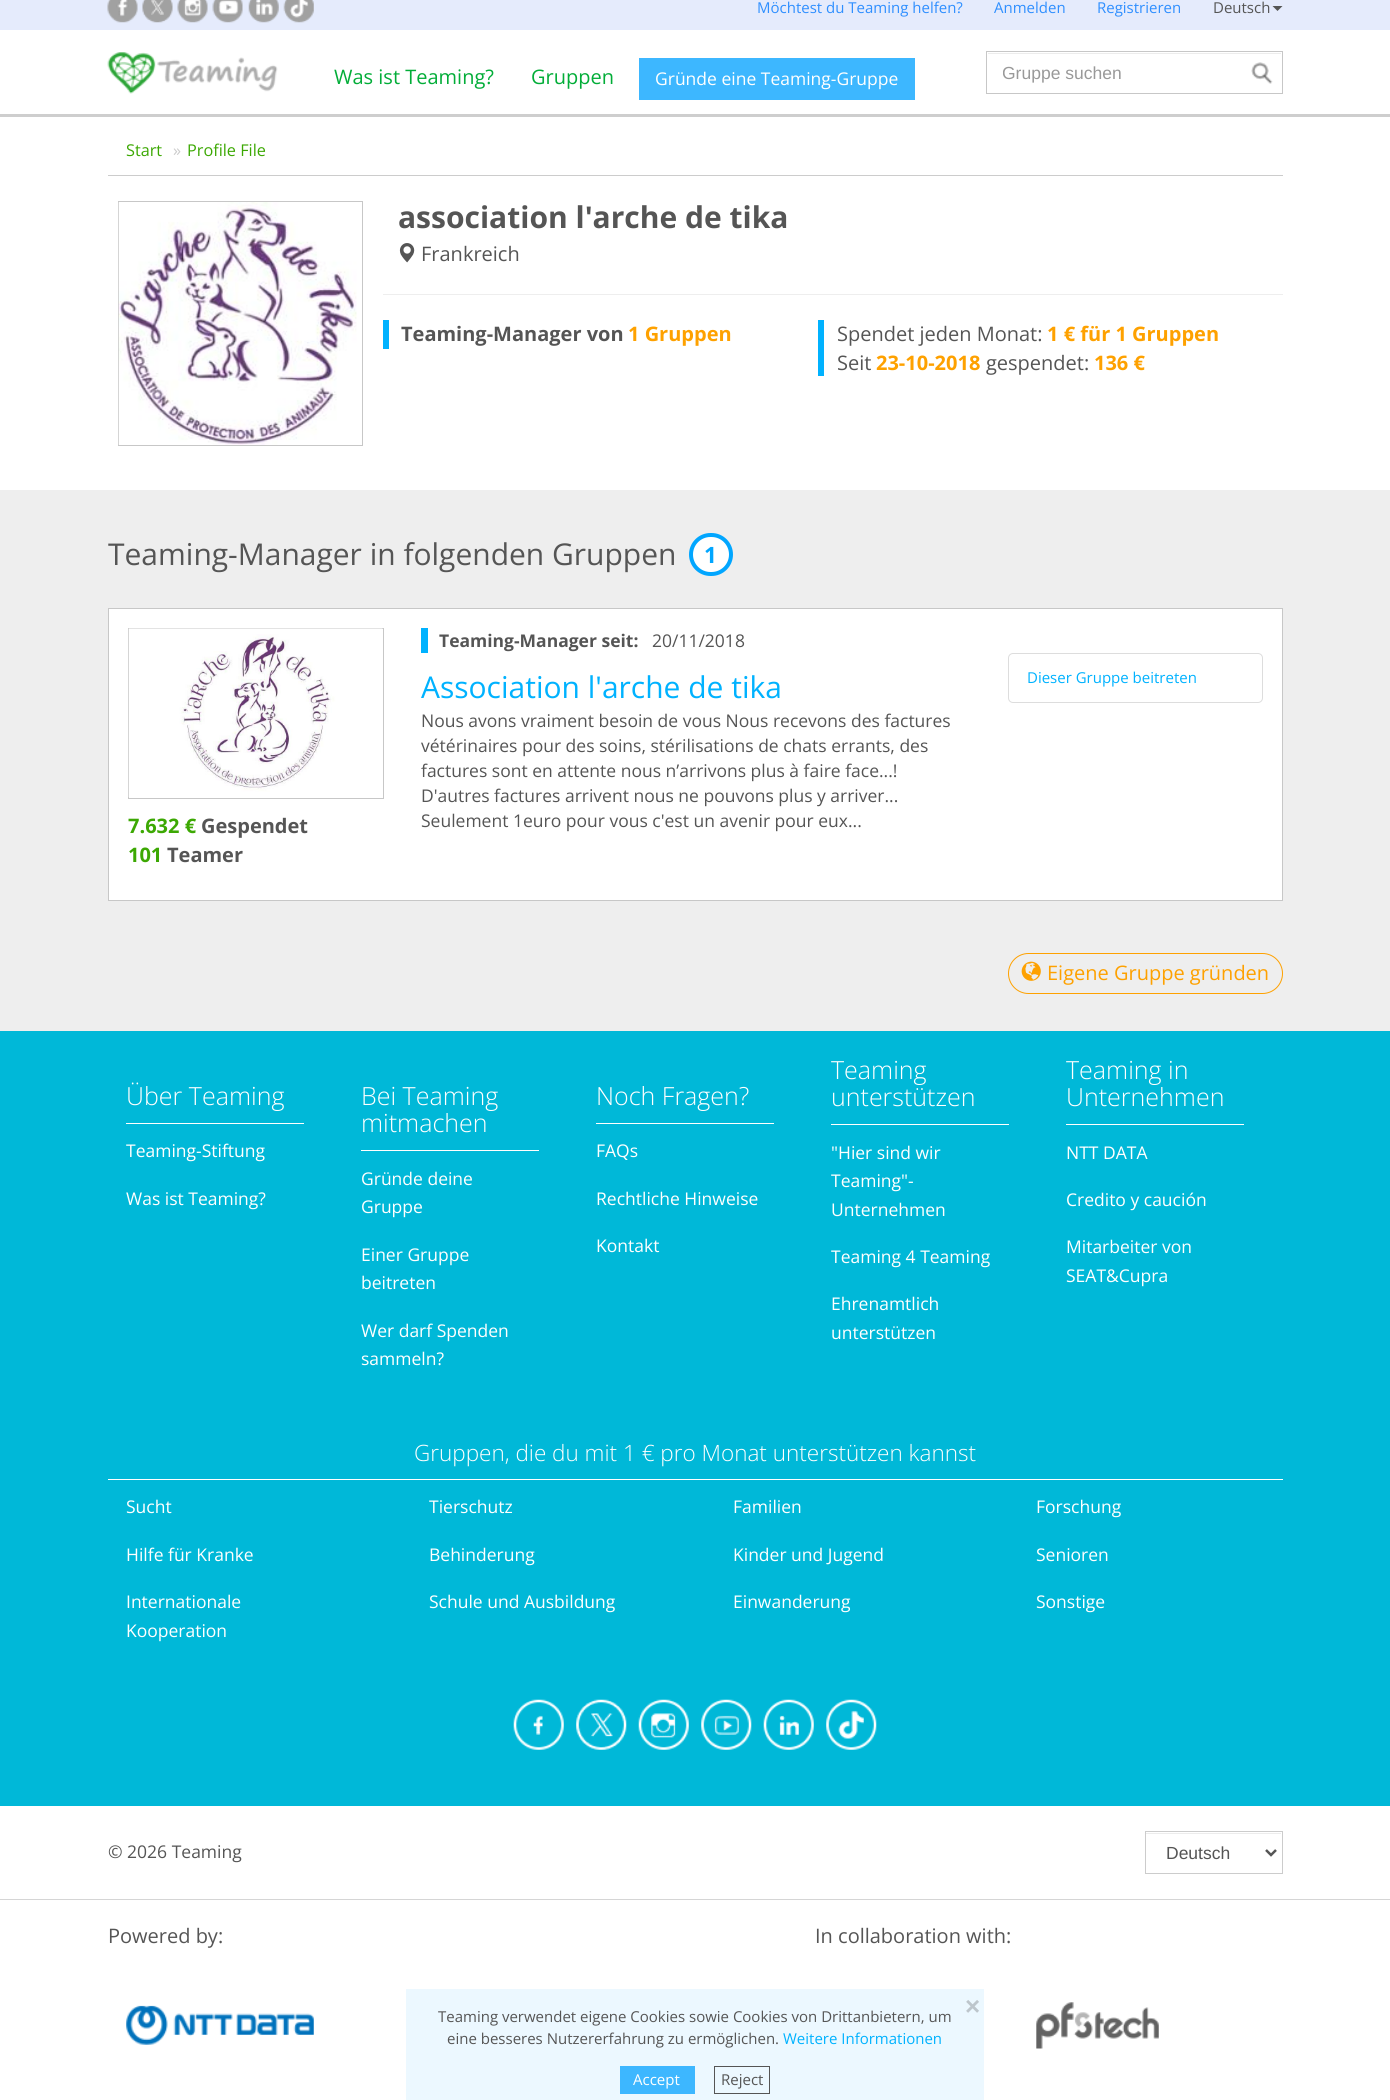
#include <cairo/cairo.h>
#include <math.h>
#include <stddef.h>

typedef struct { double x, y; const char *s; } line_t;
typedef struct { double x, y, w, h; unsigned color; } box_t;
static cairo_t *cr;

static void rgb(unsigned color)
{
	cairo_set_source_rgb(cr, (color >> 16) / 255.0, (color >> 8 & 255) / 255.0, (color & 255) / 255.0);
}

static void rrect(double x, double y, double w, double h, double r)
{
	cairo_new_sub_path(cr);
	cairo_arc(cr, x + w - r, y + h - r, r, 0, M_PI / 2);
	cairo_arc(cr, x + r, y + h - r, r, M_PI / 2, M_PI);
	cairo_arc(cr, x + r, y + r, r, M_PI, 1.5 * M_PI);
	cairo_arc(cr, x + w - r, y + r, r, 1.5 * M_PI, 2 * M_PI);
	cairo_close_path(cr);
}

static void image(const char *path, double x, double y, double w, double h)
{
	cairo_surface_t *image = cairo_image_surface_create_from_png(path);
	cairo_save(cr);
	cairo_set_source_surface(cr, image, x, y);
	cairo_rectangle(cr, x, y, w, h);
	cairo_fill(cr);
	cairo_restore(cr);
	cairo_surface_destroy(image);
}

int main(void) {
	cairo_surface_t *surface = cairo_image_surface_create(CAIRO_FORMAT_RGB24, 1390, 2100);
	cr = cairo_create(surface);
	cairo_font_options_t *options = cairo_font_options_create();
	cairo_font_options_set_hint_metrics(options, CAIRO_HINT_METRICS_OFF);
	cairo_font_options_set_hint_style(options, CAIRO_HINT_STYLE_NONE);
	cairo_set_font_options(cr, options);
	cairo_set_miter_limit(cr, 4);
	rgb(0xffffff);
	cairo_paint(cr);
	rgb(0xe5ebfc);
	cairo_rectangle(cr, 0, 0, 1390, 30);
	cairo_fill(cr);
	image("img/1.png", 107, 0, 31, 23);
	image("img/2.png", 142, 0, 31, 23);
	image("img/3.png", 177, 0, 31, 23);
	image("img/4.png", 212, 0, 31, 23);
	image("img/5.png", 248, 0, 31, 23);
	image("img/6.png", 283, 0, 31, 23);
	rgb(0x555555);
	cairo_new_path(cr);
	cairo_move_to(cr, 1272.5, 6);
	cairo_line_to(cr, 1282.5, 6);
	cairo_line_to(cr, 1277.5, 11);
	cairo_close_path(cr);
	cairo_fill(cr);
	rgb(0xcecece);
	cairo_rectangle(cr, 0, 114, 1390, 3);
	cairo_fill(cr);
	image("img/7.png", 107, 52, 171, 42);
	rgb(0x3db7ff);
	cairo_rectangle(cr, 639, 58, 276, 42);
	cairo_fill(cr);
	rgb(0xececec);
	cairo_rectangle(cr, 988, 53, 293, 1);
	cairo_fill(cr);
	cairo_rectangle(cr, 986.5, 51.5, 296, 42);
	rgb(0xc7c7c7);
	cairo_set_line_width(cr, 1);
	cairo_stroke(cr);
	image("img/8.png", 1251, 62, 22, 22);
	rgb(0xcccccc);
	cairo_rectangle(cr, 108, 175, 1175, 1);
	cairo_fill(cr);
	cairo_rectangle(cr, 118.5, 201.5, 244, 244);
	rgb(0xc7c7c7);
	cairo_stroke(cr);
	image("img/9.png", 118, 202, 239, 243);
	image("img/10.png", 399, 243, 16, 20);
	{
		static const box_t items[] = {
			{383, 294, 900, 1, 0xeeeeee},
			{383, 320, 6, 29, 0x00b2ff},
			{818, 320, 6, 56, 0x00b2ff},
			{0, 490, 1390, 541, 0xeeeeee},
		};
		for (size_t i = 0; i < sizeof items / sizeof *items; i++) {
			rgb(items[i].color);
			cairo_rectangle(cr, items[i].x, items[i].y, items[i].w, items[i].h);
			cairo_fill(cr);
		}
	}
	rgb(0xffffff);
	rrect(691, 535, 40, 39, 19.5);
	cairo_fill_preserve(cr);
	rgb(0x01a6ff);
	cairo_set_line_width(cr, 4);
	cairo_stroke(cr);
	rgb(0xffffff);
	cairo_rectangle(cr, 108.5, 608.5, 1174, 292);
	cairo_fill_preserve(cr);
	rgb(0xc7c7c7);
	cairo_set_line_width(cr, 1);
	cairo_stroke(cr);
	rgb(0x00b2ff);
	cairo_rectangle(cr, 421, 628, 7, 25);
	cairo_fill(cr);
	rrect(1008.5, 653.5, 254, 49, 4.5);
	rgb(0xdddddd);
	cairo_stroke(cr);
	cairo_rectangle(cr, 128.5, 628.5, 255, 170);
	rgb(0xc7c7c7);
	cairo_stroke(cr);
	image("img/11.png", 128, 628, 255, 169);
	rrect(1008.5, 953.5, 274, 40, 20);
	rgb(0xfea100);
	cairo_stroke(cr);
	image("img/12.png", 1021, 961, 20, 20);
	{
		static const box_t items[] = {
			{0, 1031, 1390, 775, 0x00b8d8},
			{126, 1123, 178, 1, 0xffffff},
			{361, 1150, 178, 1, 0xffffff},
			{596, 1123, 178, 1, 0xffffff},
			{831, 1124, 178, 1, 0xffffff},
			{1066, 1124, 178, 1, 0xffffff},
			{108, 1479, 1175, 1, 0xffffff},
		};
		for (size_t i = 0; i < sizeof items / sizeof *items; i++) {
			rgb(items[i].color);
			cairo_rectangle(cr, items[i].x, items[i].y, items[i].w, items[i].h);
			cairo_fill(cr);
		}
	}
	image("img/13.png", 513, 1699, 51, 51);
	image("img/14.png", 576, 1699, 51, 51);
	image("img/15.png", 638, 1699, 51, 51);
	image("img/16.png", 701, 1699, 51, 51);
	image("img/17.png", 763, 1699, 51, 51);
	image("img/18.png", 826, 1699, 51, 51);
	rgb(0xd5d5d5);
	cairo_rectangle(cr, 0, 1899, 1390, 1);
	cairo_fill(cr);
	rgb(0xececec);
	cairo_rectangle(cr, 1146, 1833, 135, 1);
	cairo_fill(cr);
	cairo_rectangle(cr, 1145.5, 1831.5, 137, 42);
	rgb(0xcccccc);
	cairo_stroke(cr);
	cairo_new_path(cr);
	cairo_move_to(cr, 1266, 1850);
	cairo_line_to(cr, 1271, 1855);
	cairo_line_to(cr, 1276, 1850);
	rgb(0x555555);
	cairo_set_line_width(cr, 2.5);
	cairo_stroke(cr);
	image("img/19.png", 126, 2005, 188, 40);
	image("img/20.png", 1036, 2002, 123, 47);
	rgb(0xecf8ff);
	cairo_rectangle(cr, 406, 1989, 578, 111);
	cairo_fill(cr);
	rgb(0x3db7ff);
	cairo_rectangle(cr, 620, 2066, 75, 28);
	cairo_fill(cr);
	cairo_rectangle(cr, 714.5, 2066.5, 55, 27);
	rgb(0x555555);
	cairo_set_line_width(cr, 1);
	cairo_stroke(cr);
	cairo_select_font_face(cr, "Open Sans", CAIRO_FONT_SLANT_NORMAL, CAIRO_FONT_WEIGHT_NORMAL);
	cairo_set_font_size(cr, 15);
	rgb(0x2f8fff);
	{
		static const line_t items[] = {
			{757, 13, "Möchtest du Teaming helfen?"},
			{994, 13, "Anmelden"},
			{1097, 13, "Registrieren"},
		};
		for (size_t i = 0; i < sizeof items / sizeof *items; i++) {
			cairo_move_to(cr, items[i].x, items[i].y);
			cairo_show_text(cr, items[i].s);
		}
	}
	rgb(0x555555);
	cairo_move_to(cr, 1213, 13);
	cairo_show_text(cr, "Deutsch");
	cairo_set_font_size(cr, 20);
	rgb(0x02ad38);
	cairo_move_to(cr, 334, 84);
	cairo_show_text(cr, "Was ist Teaming?");
	cairo_move_to(cr, 531, 84);
	cairo_show_text(cr, "Gruppen");
	cairo_set_font_size(cr, 17.5);
	rgb(0xffffff);
	cairo_move_to(cr, 655, 85);
	cairo_show_text(cr, "Gründe eine Teaming-Gruppe");
	cairo_save(cr);
	cairo_rectangle(cr, 1003, 63, 226, 20);
	cairo_clip(cr);
	cairo_select_font_face(cr, "Liberation Sans", CAIRO_FONT_SLANT_NORMAL, CAIRO_FONT_WEIGHT_NORMAL);
	rgb(0x999999);
	cairo_move_to(cr, 1002, 79);
	cairo_show_text(cr, "Gruppe suchen");
	cairo_restore(cr);
	cairo_set_font_size(cr, 16.25);
	rgb(0x3ca803);
	cairo_move_to(cr, 126, 156);
	cairo_show_text(cr, "Start");
	rgb(0xcccccc);
	cairo_move_to(cr, 173, 156);
	cairo_show_text(cr, "»");
	rgb(0x3ca803);
	cairo_move_to(cr, 187, 156);
	cairo_show_text(cr, "Profile File");
	cairo_select_font_face(cr, "Open Sans", CAIRO_FONT_SLANT_NORMAL, CAIRO_FONT_WEIGHT_BOLD);
	cairo_set_font_size(cr, 30);
	rgb(0x555555);
	cairo_move_to(cr, 398, 228);
	cairo_show_text(cr, "association l'arche de tika");
	cairo_select_font_face(cr, "Open Sans", CAIRO_FONT_SLANT_NORMAL, CAIRO_FONT_WEIGHT_NORMAL);
	cairo_set_font_size(cr, 20);
	cairo_move_to(cr, 421, 261);
	cairo_show_text(cr, "Frankreich");
	cairo_select_font_face(cr, "Open Sans", CAIRO_FONT_SLANT_NORMAL, CAIRO_FONT_WEIGHT_BOLD);
	cairo_move_to(cr, 401, 341);
	cairo_show_text(cr, "Teaming-Manager von");
	rgb(0xfea100);
	cairo_move_to(cr, 628, 341);
	cairo_show_text(cr, "1 Gruppen");
	cairo_select_font_face(cr, "Open Sans", CAIRO_FONT_SLANT_NORMAL, CAIRO_FONT_WEIGHT_NORMAL);
	rgb(0x555555);
	cairo_move_to(cr, 837, 341);
	cairo_show_text(cr, "Spendet jeden Monat:");
	cairo_select_font_face(cr, "Open Sans", CAIRO_FONT_SLANT_NORMAL, CAIRO_FONT_WEIGHT_BOLD);
	rgb(0xfea100);
	cairo_move_to(cr, 1047, 341);
	cairo_show_text(cr, "1 € für 1 Gruppen");
	cairo_select_font_face(cr, "Open Sans", CAIRO_FONT_SLANT_NORMAL, CAIRO_FONT_WEIGHT_NORMAL);
	rgb(0x555555);
	cairo_move_to(cr, 837, 370);
	cairo_show_text(cr, "Seit");
	cairo_select_font_face(cr, "Open Sans", CAIRO_FONT_SLANT_NORMAL, CAIRO_FONT_WEIGHT_BOLD);
	rgb(0xfea100);
	cairo_move_to(cr, 876, 370);
	cairo_show_text(cr, "23-10-2018");
	cairo_select_font_face(cr, "Open Sans", CAIRO_FONT_SLANT_NORMAL, CAIRO_FONT_WEIGHT_NORMAL);
	rgb(0x555555);
	cairo_move_to(cr, 986, 370);
	cairo_show_text(cr, "gespendet:");
	cairo_select_font_face(cr, "Open Sans", CAIRO_FONT_SLANT_NORMAL, CAIRO_FONT_WEIGHT_BOLD);
	rgb(0xfea100);
	cairo_move_to(cr, 1094, 370);
	cairo_show_text(cr, "136 €");
	cairo_select_font_face(cr, "Open Sans", CAIRO_FONT_SLANT_NORMAL, CAIRO_FONT_WEIGHT_NORMAL);
	cairo_set_font_size(cr, 30);
	rgb(0x555555);
	cairo_move_to(cr, 108, 565);
	cairo_show_text(cr, "Teaming-Manager in folgenden Gruppen");
	cairo_select_font_face(cr, "Open Sans", CAIRO_FONT_SLANT_NORMAL, CAIRO_FONT_WEIGHT_BOLD);
	cairo_set_font_size(cr, 22.5);
	rgb(0x01a6ff);
	cairo_move_to(cr, 704, 563);
	cairo_show_text(cr, "1");
	cairo_set_font_size(cr, 17.5);
	rgb(0x555555);
	cairo_move_to(cr, 439, 647);
	cairo_show_text(cr, "Teaming-Manager seit:");
	cairo_select_font_face(cr, "Open Sans", CAIRO_FONT_SLANT_NORMAL, CAIRO_FONT_WEIGHT_NORMAL);
	cairo_move_to(cr, 652, 647);
	cairo_show_text(cr, "20/11/2018");
	cairo_set_font_size(cr, 30);
	rgb(0x00b2ff);
	cairo_move_to(cr, 421, 698);
	cairo_show_text(cr, "Association l'arche de tika");
	cairo_set_font_size(cr, 17.5);
	rgb(0x555555);
	{
		static const line_t items[] = {
			{421, 727, "Nous avons vraiment besoin de vous Nous recevons des factures"},
			{421, 752, "vétérinaires pour des soins, stérilisations de chats errants, des"},
			{421, 777, "factures sont en attente nous n’arrivons plus à faire face...!"},
			{421, 802, "D'autres factures arrivent nous ne pouvons plus y arriver..."},
			{421, 827, "Seulement 1euro pour vous c'est un avenir pour eux..."},
		};
		for (size_t i = 0; i < sizeof items / sizeof *items; i++) {
			cairo_move_to(cr, items[i].x, items[i].y);
			cairo_show_text(cr, items[i].s);
		}
	}
	cairo_set_font_size(cr, 15);
	rgb(0x00b2ff);
	cairo_move_to(cr, 1027, 683);
	cairo_show_text(cr, "Dieser Gruppe beitreten");
	cairo_select_font_face(cr, "Open Sans", CAIRO_FONT_SLANT_NORMAL, CAIRO_FONT_WEIGHT_BOLD);
	cairo_set_font_size(cr, 20);
	rgb(0x3ca803);
	cairo_move_to(cr, 128, 833);
	cairo_show_text(cr, "7.632 €");
	rgb(0x555555);
	cairo_move_to(cr, 201, 833);
	cairo_show_text(cr, "Gespendet");
	rgb(0x3ca803);
	cairo_move_to(cr, 128, 862);
	cairo_show_text(cr, "101");
	rgb(0x555555);
	cairo_move_to(cr, 167, 862);
	cairo_show_text(cr, "Teamer");
	cairo_select_font_face(cr, "Open Sans", CAIRO_FONT_SLANT_NORMAL, CAIRO_FONT_WEIGHT_NORMAL);
	rgb(0xfea100);
	cairo_move_to(cr, 1047, 980);
	cairo_show_text(cr, "Eigene Gruppe gründen");
	cairo_select_font_face(cr, "Open Sans Light", CAIRO_FONT_SLANT_NORMAL, CAIRO_FONT_WEIGHT_NORMAL);
	cairo_set_font_size(cr, 25);
	rgb(0xffffff);
	cairo_move_to(cr, 126, 1105);
	cairo_show_text(cr, "Über Teaming");
	cairo_select_font_face(cr, "Open Sans", CAIRO_FONT_SLANT_NORMAL, CAIRO_FONT_WEIGHT_NORMAL);
	cairo_set_font_size(cr, 17.5);
	cairo_move_to(cr, 126, 1157);
	cairo_show_text(cr, "Teaming-Stiftung");
	cairo_move_to(cr, 126, 1205);
	cairo_show_text(cr, "Was ist Teaming?");
	cairo_select_font_face(cr, "Open Sans Light", CAIRO_FONT_SLANT_NORMAL, CAIRO_FONT_WEIGHT_NORMAL);
	cairo_set_font_size(cr, 25);
	cairo_move_to(cr, 361, 1105);
	cairo_show_text(cr, "Bei Teaming");
	cairo_move_to(cr, 361, 1132);
	cairo_show_text(cr, "mitmachen");
	cairo_select_font_face(cr, "Open Sans", CAIRO_FONT_SLANT_NORMAL, CAIRO_FONT_WEIGHT_NORMAL);
	cairo_set_font_size(cr, 17.5);
	{
		static const line_t items[] = {
			{361, 1185, "Gründe deine"},
			{361, 1213, "Gruppe"},
			{361, 1261, "Einer Gruppe"},
			{361, 1289, "beitreten"},
			{361, 1337, "Wer darf Spenden"},
			{361, 1365, "sammeln?"},
		};
		for (size_t i = 0; i < sizeof items / sizeof *items; i++) {
			cairo_move_to(cr, items[i].x, items[i].y);
			cairo_show_text(cr, items[i].s);
		}
	}
	cairo_select_font_face(cr, "Open Sans Light", CAIRO_FONT_SLANT_NORMAL, CAIRO_FONT_WEIGHT_NORMAL);
	cairo_set_font_size(cr, 25);
	cairo_move_to(cr, 596, 1105);
	cairo_show_text(cr, "Noch Fragen?");
	cairo_select_font_face(cr, "Open Sans", CAIRO_FONT_SLANT_NORMAL, CAIRO_FONT_WEIGHT_NORMAL);
	cairo_set_font_size(cr, 17.5);
	{
		static const line_t items[] = {
			{596, 1157, "FAQs"},
			{596, 1205, "Rechtliche Hinweise"},
			{596, 1252, "Kontakt"},
		};
		for (size_t i = 0; i < sizeof items / sizeof *items; i++) {
			cairo_move_to(cr, items[i].x, items[i].y);
			cairo_show_text(cr, items[i].s);
		}
	}
	cairo_select_font_face(cr, "Open Sans Light", CAIRO_FONT_SLANT_NORMAL, CAIRO_FONT_WEIGHT_NORMAL);
	cairo_set_font_size(cr, 25);
	cairo_move_to(cr, 831, 1079);
	cairo_show_text(cr, "Teaming");
	cairo_move_to(cr, 831, 1106);
	cairo_show_text(cr, "unterstützen");
	cairo_select_font_face(cr, "Open Sans", CAIRO_FONT_SLANT_NORMAL, CAIRO_FONT_WEIGHT_NORMAL);
	cairo_set_font_size(cr, 17.5);
	{
		static const line_t items[] = {
			{831, 1159, "\"Hier sind wir"},
			{831, 1187, "Teaming\"-"},
			{831, 1216, "Unternehmen"},
			{831, 1263, "Teaming 4 Teaming"},
			{831, 1310, "Ehrenamtlich"},
			{831, 1339, "unterstützen"},
		};
		for (size_t i = 0; i < sizeof items / sizeof *items; i++) {
			cairo_move_to(cr, items[i].x, items[i].y);
			cairo_show_text(cr, items[i].s);
		}
	}
	cairo_select_font_face(cr, "Open Sans Light", CAIRO_FONT_SLANT_NORMAL, CAIRO_FONT_WEIGHT_NORMAL);
	cairo_set_font_size(cr, 25);
	cairo_move_to(cr, 1066, 1079);
	cairo_show_text(cr, "Teaming in");
	cairo_move_to(cr, 1066, 1106);
	cairo_show_text(cr, "Unternehmen");
	cairo_select_font_face(cr, "Open Sans", CAIRO_FONT_SLANT_NORMAL, CAIRO_FONT_WEIGHT_NORMAL);
	cairo_set_font_size(cr, 17.5);
	{
		static const line_t items[] = {
			{1066, 1159, "NTT DATA"},
			{1066, 1206, "Credito y caución"},
			{1066, 1253, "Mitarbeiter von"},
			{1066, 1282, "SEAT&Cupra"},
		};
		for (size_t i = 0; i < sizeof items / sizeof *items; i++) {
			cairo_move_to(cr, items[i].x, items[i].y);
			cairo_show_text(cr, items[i].s);
		}
	}
	cairo_select_font_face(cr, "Open Sans Light", CAIRO_FONT_SLANT_NORMAL, CAIRO_FONT_WEIGHT_NORMAL);
	cairo_set_font_size(cr, 22.5);
	cairo_move_to(cr, 414, 1461);
	cairo_show_text(cr, "Gruppen, die du mit 1 € pro Monat unterstützen kannst");
	cairo_select_font_face(cr, "Open Sans", CAIRO_FONT_SLANT_NORMAL, CAIRO_FONT_WEIGHT_NORMAL);
	cairo_set_font_size(cr, 17.5);
	{
		static const line_t items[] = {
			{126, 1513, "Sucht"},
			{126, 1561, "Hilfe für Kranke"},
			{126, 1608, "Internationale"},
			{126, 1637, "Kooperation"},
			{429, 1513, "Tierschutz"},
			{429, 1561, "Behinderung"},
			{429, 1608, "Schule und Ausbildung"},
			{733, 1513, "Familien"},
			{733, 1561, "Kinder und Jugend"},
			{733, 1608, "Einwanderung"},
			{1036, 1513, "Forschung"},
			{1036, 1561, "Senioren"},
			{1036, 1608, "Sonstige"},
		};
		for (size_t i = 0; i < sizeof items / sizeof *items; i++) {
			cairo_move_to(cr, items[i].x, items[i].y);
			cairo_show_text(cr, items[i].s);
		}
	}
	rgb(0x555555);
	cairo_move_to(cr, 108, 1858);
	cairo_show_text(cr, "© 2026 Teaming");
	cairo_select_font_face(cr, "Liberation Sans", CAIRO_FONT_SLANT_NORMAL, CAIRO_FONT_WEIGHT_NORMAL);
	cairo_move_to(cr, 1166, 1859);
	cairo_show_text(cr, "Deutsch");
	cairo_select_font_face(cr, "Open Sans", CAIRO_FONT_SLANT_NORMAL, CAIRO_FONT_WEIGHT_NORMAL);
	cairo_set_font_size(cr, 20);
	cairo_move_to(cr, 108, 1943);
	cairo_show_text(cr, "Powered by:");
	cairo_move_to(cr, 815, 1943);
	cairo_show_text(cr, "In collaboration with:");
	cairo_select_font_face(cr, "Liberation Sans", CAIRO_FONT_SLANT_NORMAL, CAIRO_FONT_WEIGHT_BOLD);
	cairo_set_font_size(cr, 26);
	rgb(0xbdc6cc);
	cairo_move_to(cr, 965, 2015);
	cairo_show_text(cr, "×");
	cairo_select_font_face(cr, "Open Sans", CAIRO_FONT_SLANT_NORMAL, CAIRO_FONT_WEIGHT_NORMAL);
	cairo_set_font_size(cr, 15);
	rgb(0x555555);
	cairo_move_to(cr, 438, 2022);
	cairo_show_text(cr, "Teaming verwendet eigene Cookies sowie Cookies von Drittanbietern, um");
	cairo_move_to(cr, 447, 2044);
	cairo_show_text(cr, "eine besseres Nutzererfahrung zu ermöglichen.");
	rgb(0x00b2ff);
	cairo_move_to(cr, 783, 2044);
	cairo_show_text(cr, "Weitere Informationen");
	rgb(0xffffff);
	cairo_move_to(cr, 633, 2085);
	cairo_show_text(cr, "Accept");
	rgb(0x555555);
	cairo_move_to(cr, 721, 2085);
	cairo_show_text(cr, "Reject");
	cairo_surface_write_to_png(surface, "page.png");
	cairo_font_options_destroy(options);
	cairo_destroy(cr);
	cairo_surface_destroy(surface);
	return 0;
}
